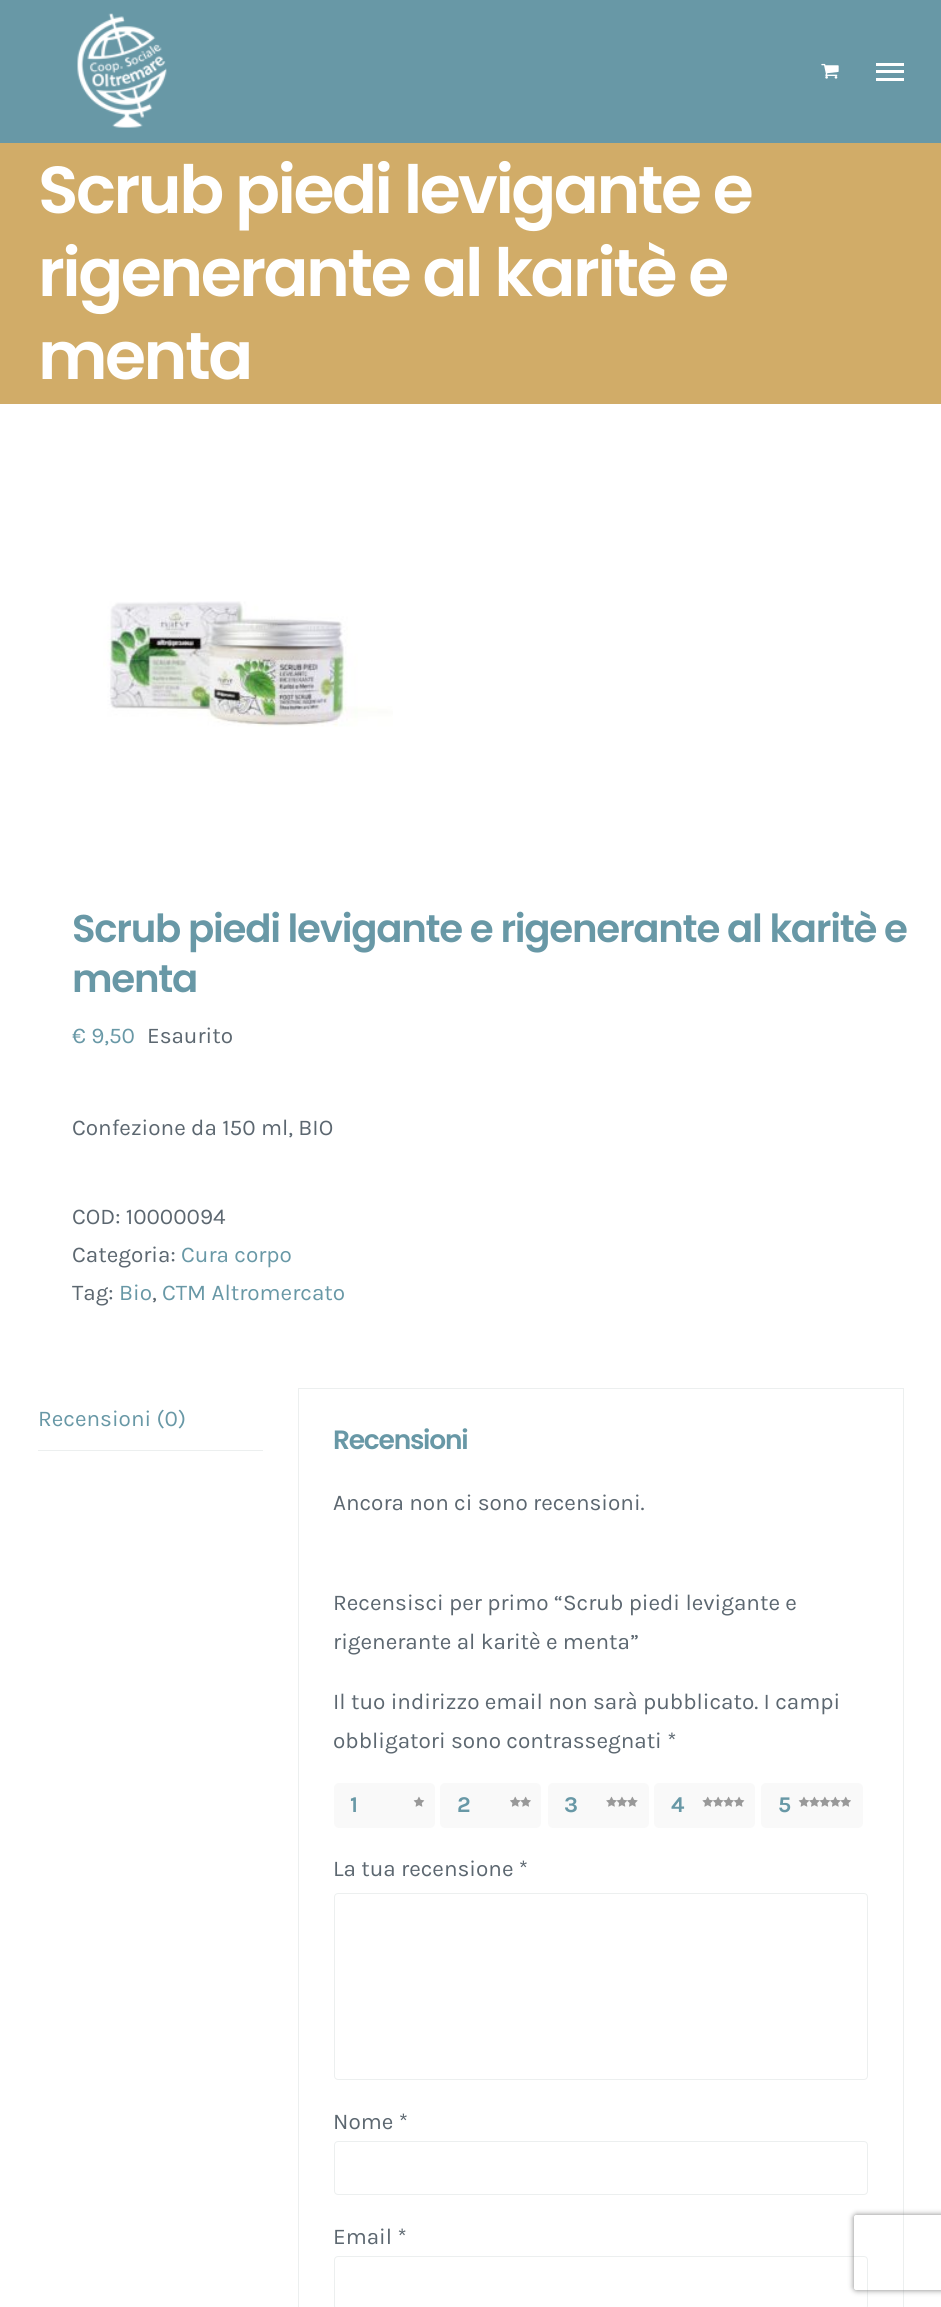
#include <cairo/cairo.h>
#include <math.h>
#include <stddef.h>

typedef struct { double x, y; const char *s; } line_t;
typedef struct { double x, y, w, h; unsigned color; } box_t;
static cairo_t *cr;

static void rgb(unsigned color)
{
	cairo_set_source_rgb(cr, (color >> 16) / 255.0, (color >> 8 & 255) / 255.0, (color & 255) / 255.0);
}

static void tracked(double x, double y, const char *s, double letter, double word)
{
	cairo_move_to(cr, x, y);
	while (*s) {
		char ch[5] = {0};
		int n = 0;
		do ch[n++] = *s++; while ((*s & 0xC0) == 0x80);
		cairo_show_text(cr, ch);
		cairo_rel_move_to(cr, letter + word * (*ch == ' '), 0);
	}
}

static void rrect(double x, double y, double w, double h, double r)
{
	cairo_new_sub_path(cr);
	cairo_arc(cr, x + w - r, y + h - r, r, 0, M_PI / 2);
	cairo_arc(cr, x + r, y + h - r, r, M_PI / 2, M_PI);
	cairo_arc(cr, x + r, y + r, r, M_PI, 1.5 * M_PI);
	cairo_arc(cr, x + w - r, y + r, r, 1.5 * M_PI, 2 * M_PI);
	cairo_close_path(cr);
}

static void soft_shadow(double x, double y, double w, double h, double r, double blur, double alpha)
{
	cairo_push_group_with_content(cr, CAIRO_CONTENT_ALPHA);
	cairo_set_operator(cr, CAIRO_OPERATOR_SOURCE);
	for (int i = 15; i >= -15 && fmin(w, h) + blur * i / 3 > 0; i -= 2) {
		double e = blur * i / 6;
		cairo_set_source_rgba(cr, 0, 0, 0, alpha * erfc((i - 1) / 8.5) / 2);
		rrect(x - e, y - e, w + 2 * e, h + 2 * e, fmax(0, fmin(r + e + blur * .6, fmin(w, h) / 2 + e)));
		cairo_fill(cr);
	}
	cairo_pattern_t *soft = cairo_pop_group(cr);
	cairo_mask(cr, soft);
	cairo_pattern_destroy(soft);
}

static void image(const char *path, double x, double y, double w, double h)
{
	cairo_surface_t *image = cairo_image_surface_create_from_png(path);
	cairo_save(cr);
	cairo_set_source_surface(cr, image, x, y);
	cairo_rectangle(cr, x, y, w, h);
	cairo_fill(cr);
	cairo_restore(cr);
	cairo_surface_destroy(image);
}

int main(void) {
	cairo_surface_t *surface = cairo_image_surface_create(CAIRO_FORMAT_RGB24, 941, 2307);
	cr = cairo_create(surface);
	cairo_font_options_t *options = cairo_font_options_create();
	cairo_font_options_set_hint_metrics(options, CAIRO_HINT_METRICS_OFF);
	cairo_font_options_set_hint_style(options, CAIRO_HINT_STYLE_NONE);
	cairo_set_font_options(cr, options);
	cairo_set_miter_limit(cr, 4);
	rgb(0xffffff);
	cairo_paint(cr);
	rgb(0x6898a6);
	cairo_rectangle(cr, 0, 0, 941, 143);
	cairo_fill(cr);
	image("img/1.png", 77, 13, 90, 115);
	image("img/2.png", 821, 63, 18, 16);
	{
		static const box_t items[] = {
			{876, 63, 28, 3, 0xffffff},
			{876, 70, 28, 3, 0xffffff},
			{876, 78, 28, 3, 0xffffff},
			{0, 143, 941, 261, 0xd1ac68},
		};
		for (size_t i = 0; i < sizeof items / sizeof *items; i++) {
			rgb(items[i].color);
			cairo_rectangle(cr, items[i].x, items[i].y, items[i].w, items[i].h);
			cairo_fill(cr);
		}
	}
	image("img/3.png", 103, 601, 290, 126);
	rgb(0xecefef);
	cairo_rectangle(cr, 38, 1450, 225, 1);
	cairo_fill(cr);
	cairo_rectangle(cr, 298.5, 1388.5, 605, 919);
	cairo_set_line_width(cr, 1);
	cairo_stroke(cr);
	rgb(0xf9f9f9);
	rrect(334, 1783, 101, 45, 5);
	cairo_fill(cr);
	image("img/4.png", 413, 1796, 12, 11);
	rrect(440, 1783, 101, 45, 5);
	cairo_fill(cr);
	image("img/5.png", 510, 1796, 21, 11);
	rrect(548, 1783, 101, 45, 5);
	cairo_fill(cr);
	image("img/6.png", 606, 1796, 32, 11);
	rrect(654, 1783, 101, 45, 5);
	cairo_fill(cr);
	image("img/7.png", 702, 1796, 43, 11);
	rrect(761, 1783, 102, 45, 5);
	cairo_fill(cr);
	image("img/8.png", 798, 1796, 53, 11);
	rrect(334.5, 1893.5, 533, 186, 3.5);
	rgb(0xecefef);
	cairo_stroke(cr);
	rrect(334.5, 2141.5, 533, 53, 3.5);
	cairo_stroke(cr);
	rrect(334.5, 2256.5, 533, 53, 3.5);
	cairo_stroke(cr);
	cairo_save(cr);
	cairo_set_fill_rule(cr, CAIRO_FILL_RULE_EVEN_ODD);
	cairo_new_path(cr);
	cairo_move_to(cr, 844, 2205);
	cairo_line_to(cr, 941, 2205);
	cairo_line_to(cr, 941, 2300);
	cairo_line_to(cr, 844, 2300);
	cairo_close_path(cr);
	cairo_move_to(cr, 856.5, 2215);
	cairo_line_to(cr, 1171.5, 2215);
	cairo_curve_to(cr, 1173, 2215, 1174, 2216, 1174, 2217.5);
	cairo_line_to(cr, 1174, 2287.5);
	cairo_curve_to(cr, 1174, 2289, 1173, 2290, 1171.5, 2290);
	cairo_line_to(cr, 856.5, 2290);
	cairo_curve_to(cr, 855, 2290, 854, 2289, 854, 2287.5);
	cairo_line_to(cr, 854, 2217.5);
	cairo_curve_to(cr, 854, 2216, 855, 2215, 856.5, 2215);
	cairo_close_path(cr);
	cairo_clip(cr);
	rgb(0x808080);
	soft_shadow(854, 2215, 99, 75, 2.5, 3, 1);
	cairo_restore(cr);
	cairo_select_font_face(cr, "Poppins SemiBold", CAIRO_FONT_SLANT_NORMAL, CAIRO_FONT_WEIGHT_NORMAL);
	cairo_set_font_size(cr, 66.4);
	rgb(0xffffff);
	{
		static const line_t items[] = {
			{38, 213, "Scrub piedi levigante e"},
			{38, 296, "rigenerante al karitè e"},
			{38, 379, "menta"},
		};
		for (size_t i = 0; i < sizeof items / sizeof *items; i++) {
			tracked(items[i].x, items[i].y, items[i].s, -2.5, 0);
		}
	}
	cairo_set_font_size(cr, 38.7);
	rgb(0x6898a6);
	tracked(72, 942, "Scrub piedi levigante e rigenerante al karitè e", -1.25, 0);
	tracked(72, 992, "menta", -1.25, 0);
	cairo_select_font_face(cr, "Karla", CAIRO_FONT_SLANT_NORMAL, CAIRO_FONT_WEIGHT_NORMAL);
	cairo_set_font_size(cr, 22.5);
	cairo_move_to(cr, 72, 1043);
	cairo_show_text(cr, "€ 9,50");
	rgb(0x5c6770);
	{
		static const line_t items[] = {
			{147, 1043, "Esaurito"},
			{72, 1135, "Confezione da 150 ml, BIO"},
			{72, 1224, "COD: 10000094"},
			{72, 1262, "Categoria:"},
		};
		for (size_t i = 0; i < sizeof items / sizeof *items; i++) {
			cairo_move_to(cr, items[i].x, items[i].y);
			cairo_show_text(cr, items[i].s);
		}
	}
	rgb(0x6898a6);
	cairo_move_to(cr, 181, 1262);
	cairo_show_text(cr, "Cura corpo");
	rgb(0x5c6770);
	cairo_move_to(cr, 72, 1300);
	cairo_show_text(cr, "Tag:");
	rgb(0x6898a6);
	cairo_move_to(cr, 119, 1300);
	cairo_show_text(cr, "Bio");
	rgb(0x5c6770);
	cairo_move_to(cr, 152, 1300);
	cairo_show_text(cr, ",");
	rgb(0x6898a6);
	cairo_move_to(cr, 162, 1300);
	cairo_show_text(cr, "CTM Altromercato");
	cairo_move_to(cr, 38, 1426);
	cairo_show_text(cr, "Recensioni (0)");
	cairo_select_font_face(cr, "Poppins SemiBold", CAIRO_FONT_SLANT_NORMAL, CAIRO_FONT_WEIGHT_NORMAL);
	cairo_set_font_size(cr, 26.5);
	tracked(333, 1449, "Recensioni", -1.25, 0);
	cairo_select_font_face(cr, "Karla", CAIRO_FONT_SLANT_NORMAL, CAIRO_FONT_WEIGHT_NORMAL);
	cairo_set_font_size(cr, 22.5);
	rgb(0x5c6770);
	{
		static const line_t items[] = {
			{333, 1510, "Ancora non ci sono recensioni."},
			{333, 1610, "Recensisci per primo “Scrub piedi levigante e"},
			{333, 1649, "rigenerante al karitè e menta”"},
			{333, 1709, "Il tuo indirizzo email non sarà pubblicato. I campi"},
			{333, 1748, "obbligatori sono contrassegnati *"},
		};
		for (size_t i = 0; i < sizeof items / sizeof *items; i++) {
			cairo_move_to(cr, items[i].x, items[i].y);
			cairo_show_text(cr, items[i].s);
		}
	}
	cairo_select_font_face(cr, "Karla", CAIRO_FONT_SLANT_NORMAL, CAIRO_FONT_WEIGHT_BOLD);
	rgb(0x6898a6);
	{
		static const line_t items[] = {
			{350, 1812, "1"},
			{457, 1812, "2"},
			{564, 1812, "3"},
			{671, 1812, "4"},
			{778, 1812, "5"},
		};
		for (size_t i = 0; i < sizeof items / sizeof *items; i++) {
			cairo_move_to(cr, items[i].x, items[i].y);
			cairo_show_text(cr, items[i].s);
		}
	}
	cairo_select_font_face(cr, "Karla", CAIRO_FONT_SLANT_NORMAL, CAIRO_FONT_WEIGHT_NORMAL);
	rgb(0x5c6770);
	{
		static const line_t items[] = {
			{333, 1876, "La tua recensione *"},
			{333, 2129, "Nome *"},
			{333, 2244, "Email *"},
		};
		for (size_t i = 0; i < sizeof items / sizeof *items; i++) {
			cairo_move_to(cr, items[i].x, items[i].y);
			cairo_show_text(cr, items[i].s);
		}
	}
	cairo_surface_write_to_png(surface, "page.png");
	cairo_font_options_destroy(options);
	cairo_destroy(cr);
	cairo_surface_destroy(surface);
	return 0;
}
